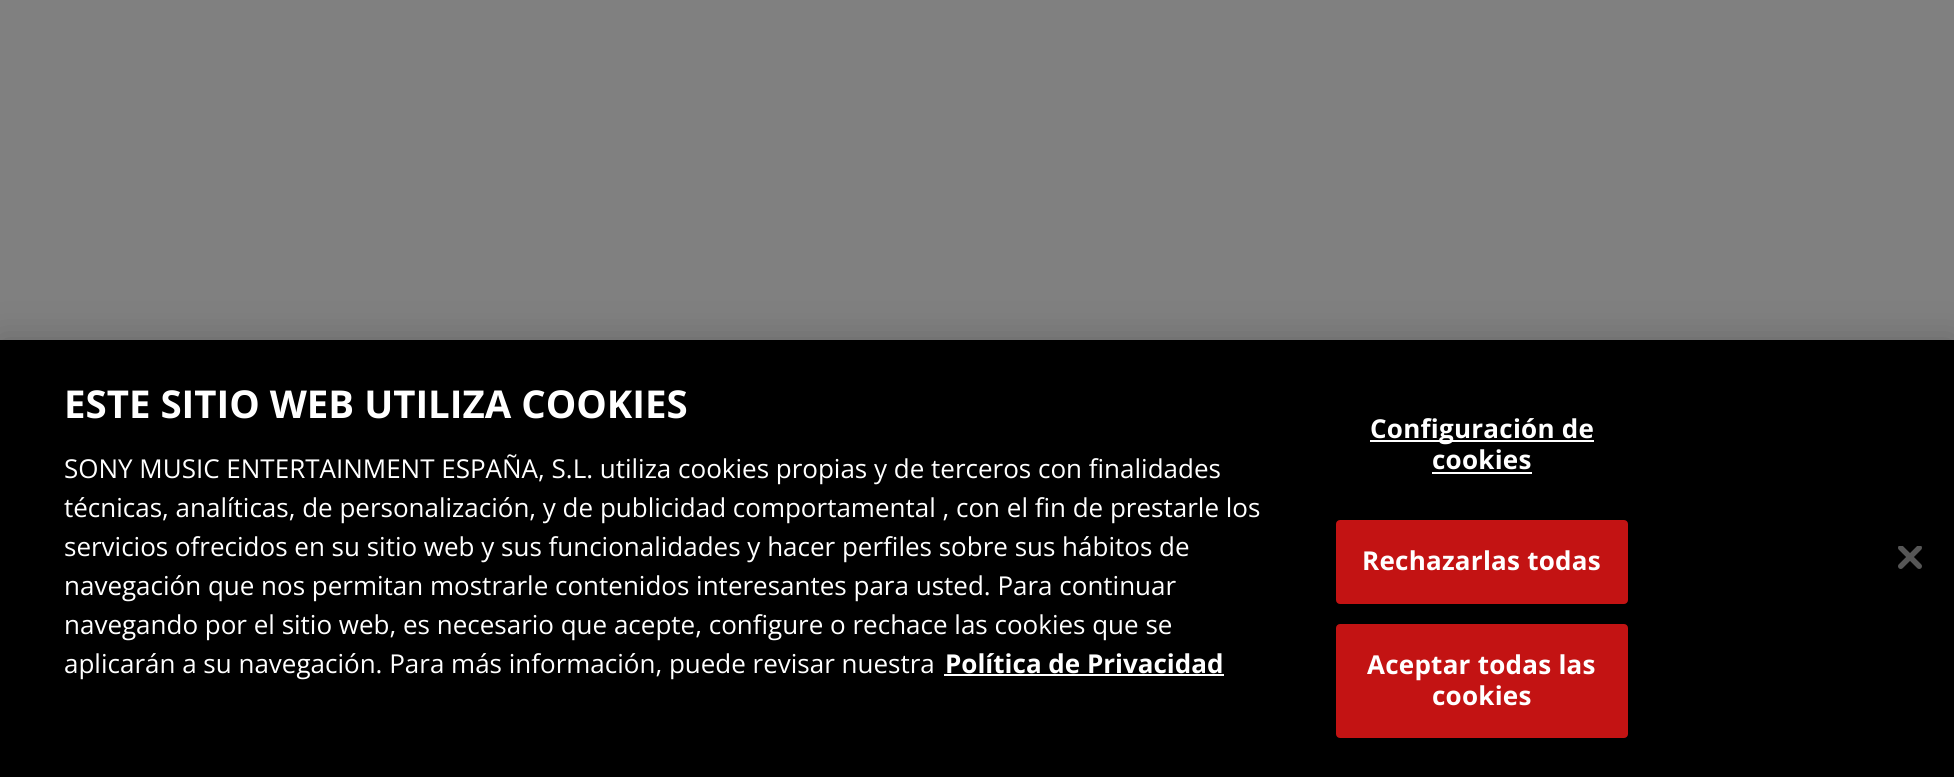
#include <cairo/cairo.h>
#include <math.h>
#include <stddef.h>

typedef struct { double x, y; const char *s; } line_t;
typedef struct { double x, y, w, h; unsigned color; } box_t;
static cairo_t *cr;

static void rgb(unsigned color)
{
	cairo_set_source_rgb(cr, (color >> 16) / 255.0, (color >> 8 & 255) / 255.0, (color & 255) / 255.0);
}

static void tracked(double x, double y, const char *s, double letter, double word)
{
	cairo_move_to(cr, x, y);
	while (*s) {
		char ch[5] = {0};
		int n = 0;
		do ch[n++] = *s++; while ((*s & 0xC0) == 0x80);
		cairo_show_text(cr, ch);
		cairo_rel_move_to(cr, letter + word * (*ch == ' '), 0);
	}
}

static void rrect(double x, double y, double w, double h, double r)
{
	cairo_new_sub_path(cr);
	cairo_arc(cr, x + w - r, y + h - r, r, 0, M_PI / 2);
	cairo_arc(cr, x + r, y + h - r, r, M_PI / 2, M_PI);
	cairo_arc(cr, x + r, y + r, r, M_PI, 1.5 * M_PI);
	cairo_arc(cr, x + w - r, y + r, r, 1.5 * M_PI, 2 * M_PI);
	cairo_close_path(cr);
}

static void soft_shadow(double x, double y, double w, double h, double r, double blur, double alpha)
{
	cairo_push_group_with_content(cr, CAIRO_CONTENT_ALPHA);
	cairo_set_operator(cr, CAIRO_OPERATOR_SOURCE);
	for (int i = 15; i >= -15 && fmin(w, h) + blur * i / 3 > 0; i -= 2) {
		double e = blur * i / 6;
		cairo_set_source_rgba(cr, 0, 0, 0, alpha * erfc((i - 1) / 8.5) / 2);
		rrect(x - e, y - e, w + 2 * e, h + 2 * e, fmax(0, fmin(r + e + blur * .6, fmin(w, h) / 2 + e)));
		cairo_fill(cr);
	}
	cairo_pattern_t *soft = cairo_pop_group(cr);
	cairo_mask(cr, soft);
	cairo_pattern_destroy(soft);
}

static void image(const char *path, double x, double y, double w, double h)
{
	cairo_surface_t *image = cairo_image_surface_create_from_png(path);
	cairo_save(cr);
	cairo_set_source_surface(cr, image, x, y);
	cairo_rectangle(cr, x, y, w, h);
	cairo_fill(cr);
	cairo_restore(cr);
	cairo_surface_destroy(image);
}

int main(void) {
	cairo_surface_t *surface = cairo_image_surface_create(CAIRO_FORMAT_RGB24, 1954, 777);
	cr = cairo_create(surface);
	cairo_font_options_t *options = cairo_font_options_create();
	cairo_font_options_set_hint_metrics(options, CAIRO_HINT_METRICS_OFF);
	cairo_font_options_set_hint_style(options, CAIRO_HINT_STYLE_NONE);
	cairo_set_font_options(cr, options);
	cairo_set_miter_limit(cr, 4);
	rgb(0x808080);
	cairo_paint(cr);
	rgb(0x000000);
	soft_shadow(0, 340, 1954, 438, 0, 18, 0.2);
	{
		static const box_t items[] = {
			{0, 340, 1954, 437, 0x000000},
			{944, 674, 280, 2, 0xffffff},
			{1370, 440, 224, 2, 0xffffff},
			{1432, 472, 100, 2, 0xffffff},
		};
		for (size_t i = 0; i < sizeof items / sizeof *items; i++) {
			rgb(items[i].color);
			cairo_rectangle(cr, items[i].x, items[i].y, items[i].w, items[i].h);
			cairo_fill(cr);
		}
	}
	rgb(0xc31313);
	rrect(1337, 521, 290, 82, 3);
	cairo_fill_preserve(cr);
	cairo_stroke(cr);
	rrect(1337, 625, 290, 112, 3);
	cairo_fill_preserve(cr);
	cairo_stroke(cr);
	image("img/1.png", 1898, 546, 24, 23);
	cairo_select_font_face(cr, "Open Sans", CAIRO_FONT_SLANT_NORMAL, CAIRO_FONT_WEIGHT_BOLD);
	cairo_set_font_size(cr, 38.4);
	rgb(0xffffff);
	cairo_move_to(cr, 64, 418);
	cairo_show_text(cr, "ESTE SITIO WEB UTILIZA COOKIES");
	cairo_select_font_face(cr, "Open Sans", CAIRO_FONT_SLANT_NORMAL, CAIRO_FONT_WEIGHT_NORMAL);
	cairo_set_font_size(cr, 26);
	{
		static const line_t items[] = {
			{64, 478, "SONY MUSIC ENTERTAINMENT ESPAÑA, S.L. utiliza cookies propias y de terceros con finalidades"},
			{64, 517, "técnicas, analíticas, de personalización, y de publicidad comportamental , con el fin de prestarle los"},
			{64, 556, "servicios ofrecidos en su sitio web y sus funcionalidades y hacer perfiles sobre sus hábitos de"},
			{64, 595, "navegación que nos permitan mostrarle contenidos interesantes para usted. Para continuar"},
			{64, 634, "navegando por el sitio web, es necesario que acepte, configure o rechace las cookies que se"},
			{64, 673, "aplicarán a su navegación. Para más información, puede revisar nuestra"},
		};
		for (size_t i = 0; i < sizeof items / sizeof *items; i++) {
			cairo_move_to(cr, items[i].x, items[i].y);
			cairo_show_text(cr, items[i].s);
		}
	}
	cairo_select_font_face(cr, "Open Sans", CAIRO_FONT_SLANT_NORMAL, CAIRO_FONT_WEIGHT_BOLD);
	cairo_move_to(cr, 945, 673);
	cairo_show_text(cr, "Política de Privacidad");
	{
		static const line_t items[] = {
			{1370, 438, "Configuración de"},
			{1432, 469, "cookies"},
			{1362, 570, "Rechazarlas todas"},
			{1367, 674, "Aceptar todas las"},
			{1432, 705, "cookies"},
		};
		for (size_t i = 0; i < sizeof items / sizeof *items; i++) {
			tracked(items[i].x, items[i].y, items[i].s, 0.25, 0);
		}
	}
	cairo_surface_write_to_png(surface, "page.png");
	cairo_font_options_destroy(options);
	cairo_destroy(cr);
	cairo_surface_destroy(surface);
	return 0;
}
